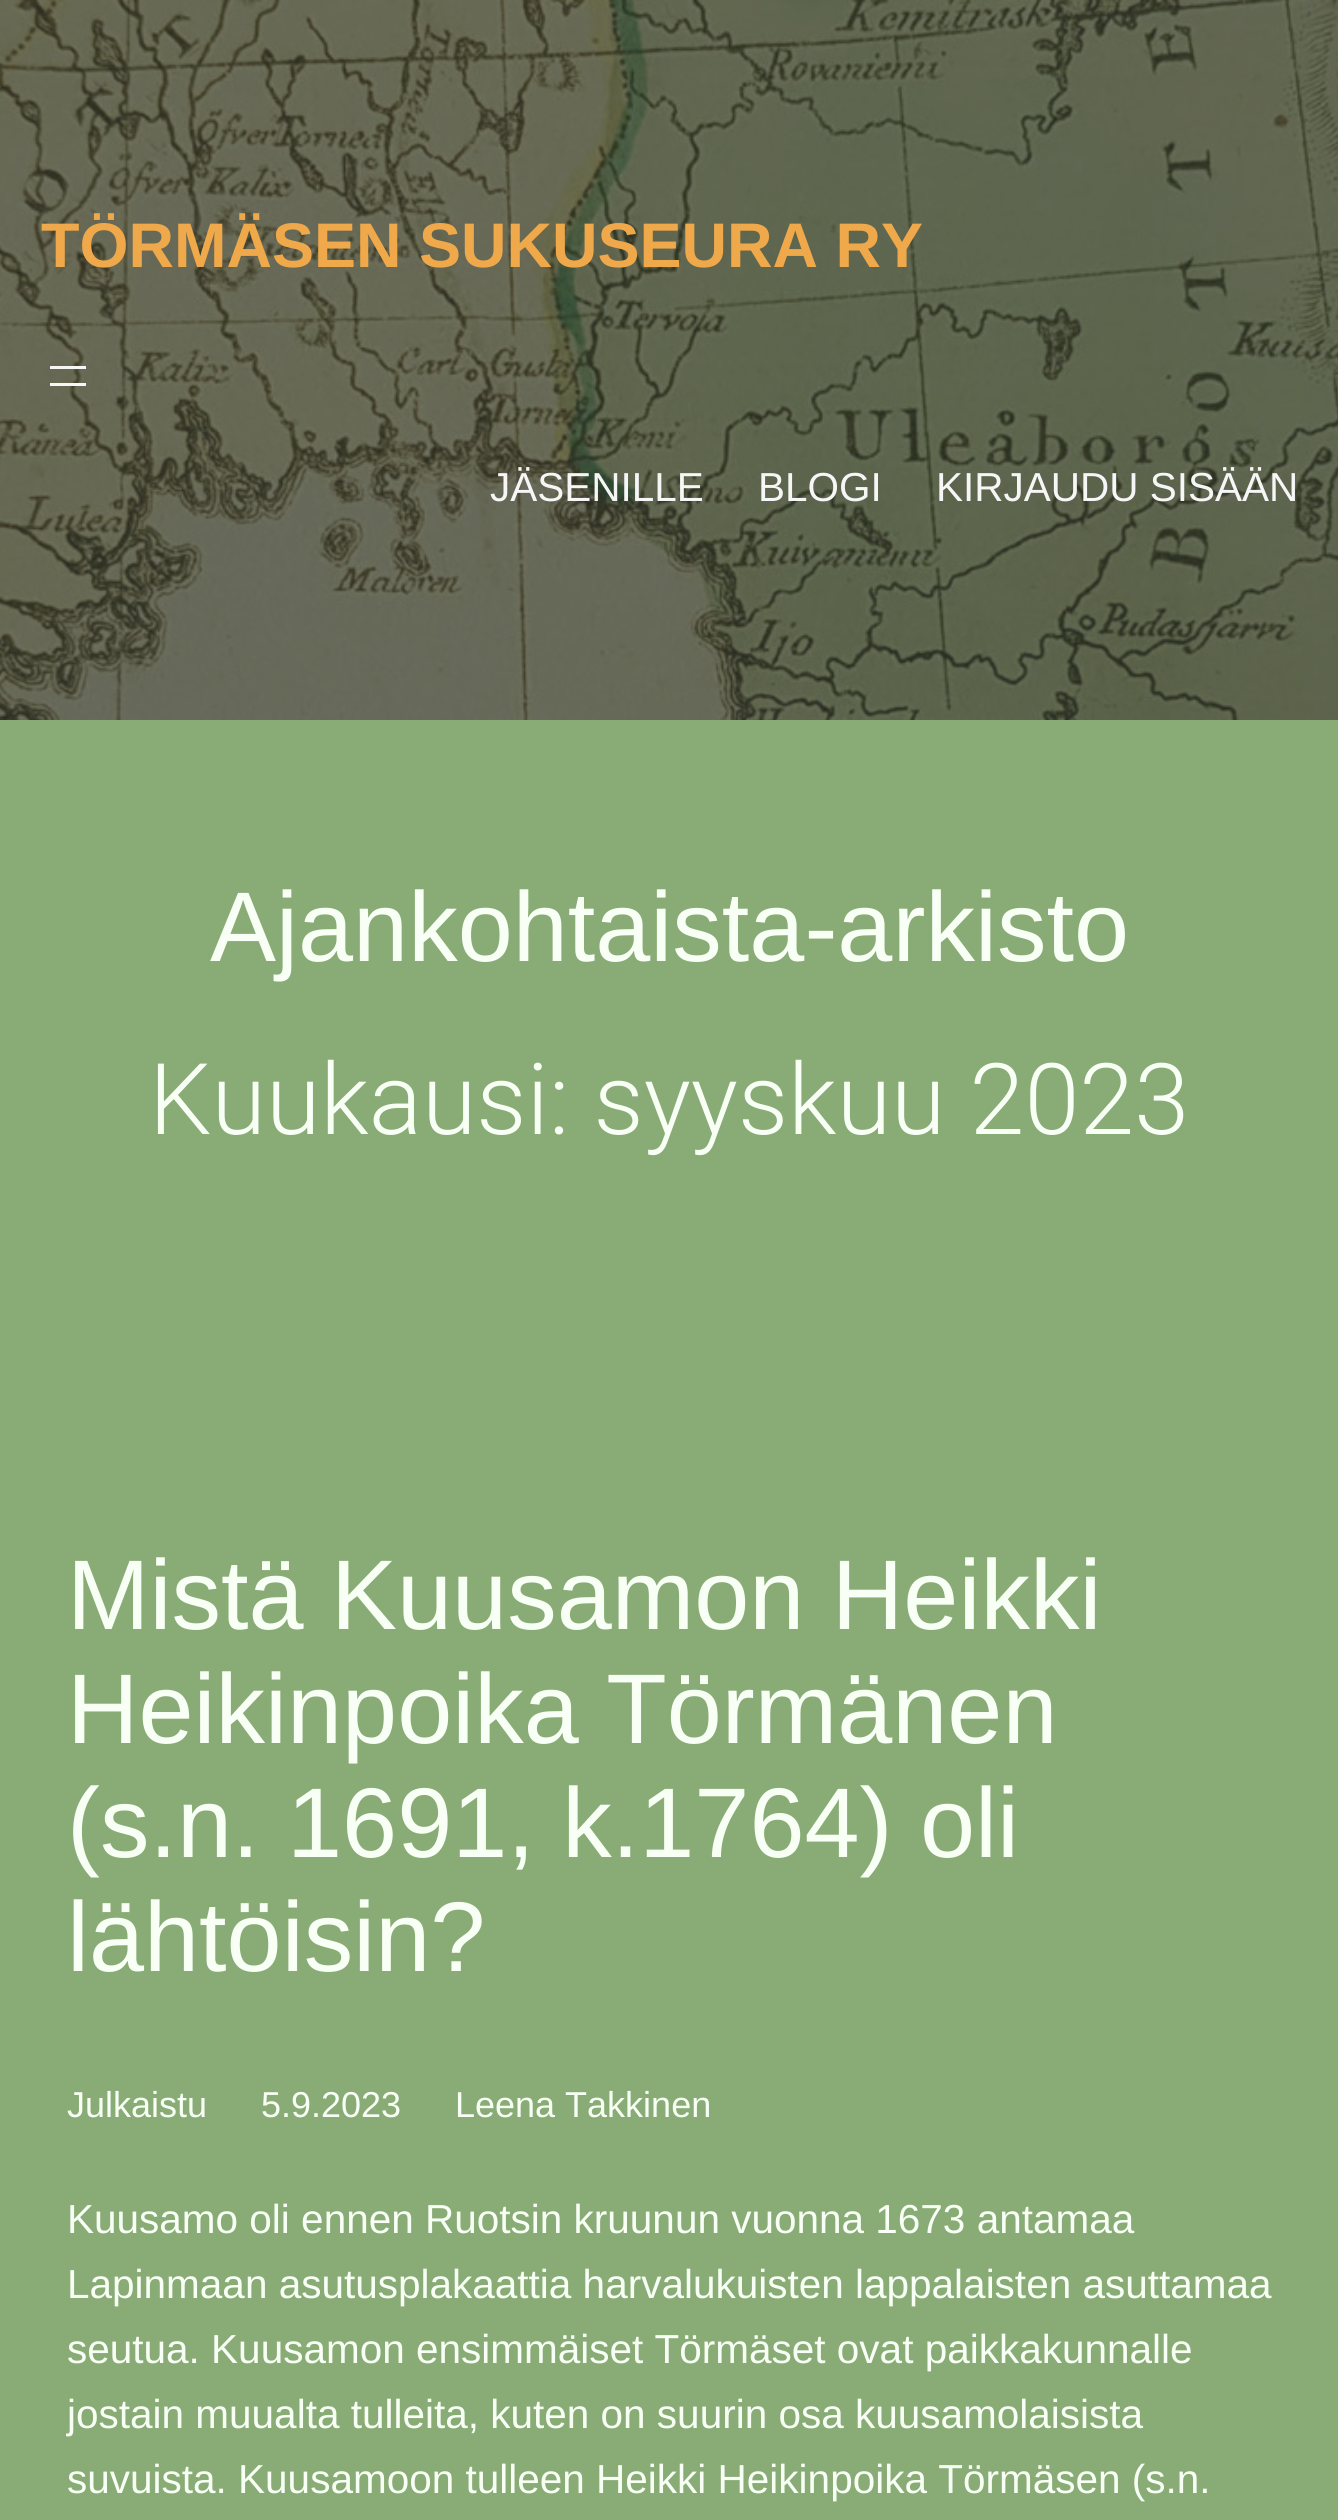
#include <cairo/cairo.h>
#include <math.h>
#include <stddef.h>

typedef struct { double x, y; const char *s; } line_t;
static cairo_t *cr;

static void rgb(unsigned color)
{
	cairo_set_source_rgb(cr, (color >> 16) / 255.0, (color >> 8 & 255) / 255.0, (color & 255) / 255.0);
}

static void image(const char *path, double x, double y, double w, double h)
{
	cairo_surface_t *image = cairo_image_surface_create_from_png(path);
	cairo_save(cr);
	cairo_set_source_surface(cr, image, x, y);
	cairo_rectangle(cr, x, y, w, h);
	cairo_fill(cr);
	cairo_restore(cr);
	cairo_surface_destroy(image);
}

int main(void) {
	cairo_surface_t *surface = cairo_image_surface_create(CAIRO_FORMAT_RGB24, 1338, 2520);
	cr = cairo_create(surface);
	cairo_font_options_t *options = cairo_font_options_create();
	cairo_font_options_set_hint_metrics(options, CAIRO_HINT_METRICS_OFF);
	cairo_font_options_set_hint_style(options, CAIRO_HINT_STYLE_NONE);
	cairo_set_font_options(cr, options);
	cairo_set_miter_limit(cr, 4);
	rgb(0x89ac76);
	cairo_paint(cr);
	image("img/1.png", 0, 0, 1338, 720);
	rgb(0xf6f6f6);
	cairo_rectangle(cr, 50, 366, 36, 3);
	cairo_fill(cr);
	cairo_rectangle(cr, 50, 383, 36, 3);
	cairo_fill(cr);
	cairo_select_font_face(cr, "Liberation Sans", CAIRO_FONT_SLANT_NORMAL, CAIRO_FONT_WEIGHT_BOLD);
	cairo_set_font_size(cr, 63);
	rgb(0xefa94a);
	cairo_move_to(cr, 41, 267);
	cairo_show_text(cr, "TÖRMÄSEN SUKUSEURA RY");
	cairo_select_font_face(cr, "Liberation Sans", CAIRO_FONT_SLANT_NORMAL, CAIRO_FONT_WEIGHT_NORMAL);
	cairo_set_font_size(cr, 40.5);
	rgb(0xf6f6f6);
	{
		static const line_t items[] = {
			{490, 501, "JÄSENILLE"},
			{758, 501, "BLOGI"},
			{936, 501, "KIRJAUDU SISÄÄN"},
		};
		for (size_t i = 0; i < sizeof items / sizeof *items; i++) {
			cairo_move_to(cr, items[i].x, items[i].y);
			cairo_show_text(cr, items[i].s);
		}
	}
	cairo_set_font_size(cr, 99);
	rgb(0xf8fff5);
	cairo_move_to(cr, 210, 961);
	cairo_show_text(cr, "Ajankohtaista-arkisto");
	cairo_select_font_face(cr, "Roboto Light", CAIRO_FONT_SLANT_NORMAL, CAIRO_FONT_WEIGHT_NORMAL);
	cairo_move_to(cr, 149, 1134);
	cairo_show_text(cr, "Kuukausi: syyskuu 2023");
	cairo_select_font_face(cr, "Liberation Sans", CAIRO_FONT_SLANT_NORMAL, CAIRO_FONT_WEIGHT_NORMAL);
	{
		static const line_t items[] = {
			{67, 1629, "Mistä Kuusamon Heikki"},
			{67, 1743, "Heikinpoika Törmänen"},
			{67, 1857, "(s.n. 1691, k.1764) oli"},
			{67, 1971, "lähtöisin?"},
		};
		for (size_t i = 0; i < sizeof items / sizeof *items; i++) {
			cairo_move_to(cr, items[i].x, items[i].y);
			cairo_show_text(cr, items[i].s);
		}
	}
	cairo_set_font_size(cr, 36);
	{
		static const line_t items[] = {
			{67, 2117, "Julkaistu"},
			{261, 2117, "5.9.2023"},
			{455, 2117, "Leena Takkinen"},
		};
		for (size_t i = 0; i < sizeof items / sizeof *items; i++) {
			cairo_move_to(cr, items[i].x, items[i].y);
			cairo_show_text(cr, items[i].s);
		}
	}
	cairo_set_font_size(cr, 40.5);
	{
		static const line_t items[] = {
			{67, 2233, "Kuusamo oli ennen Ruotsin kruunun vuonna 1673 antamaa"},
			{67, 2298, "Lapinmaan asutusplakaattia harvalukuisten lappalaisten asuttamaa"},
			{67, 2363, "seutua. Kuusamon ensimmäiset Törmäset ovat paikkakunnalle"},
			{67, 2428, "jostain muualta tulleita, kuten on suurin osa kuusamolaisista"},
			{67, 2493, "suvuista. Kuusamoon tulleen Heikki Heikinpoika Törmäsen (s.n."},
		};
		for (size_t i = 0; i < sizeof items / sizeof *items; i++) {
			cairo_move_to(cr, items[i].x, items[i].y);
			cairo_show_text(cr, items[i].s);
		}
	}
	cairo_surface_write_to_png(surface, "page.png");
	cairo_font_options_destroy(options);
	cairo_destroy(cr);
	cairo_surface_destroy(surface);
	return 0;
}
